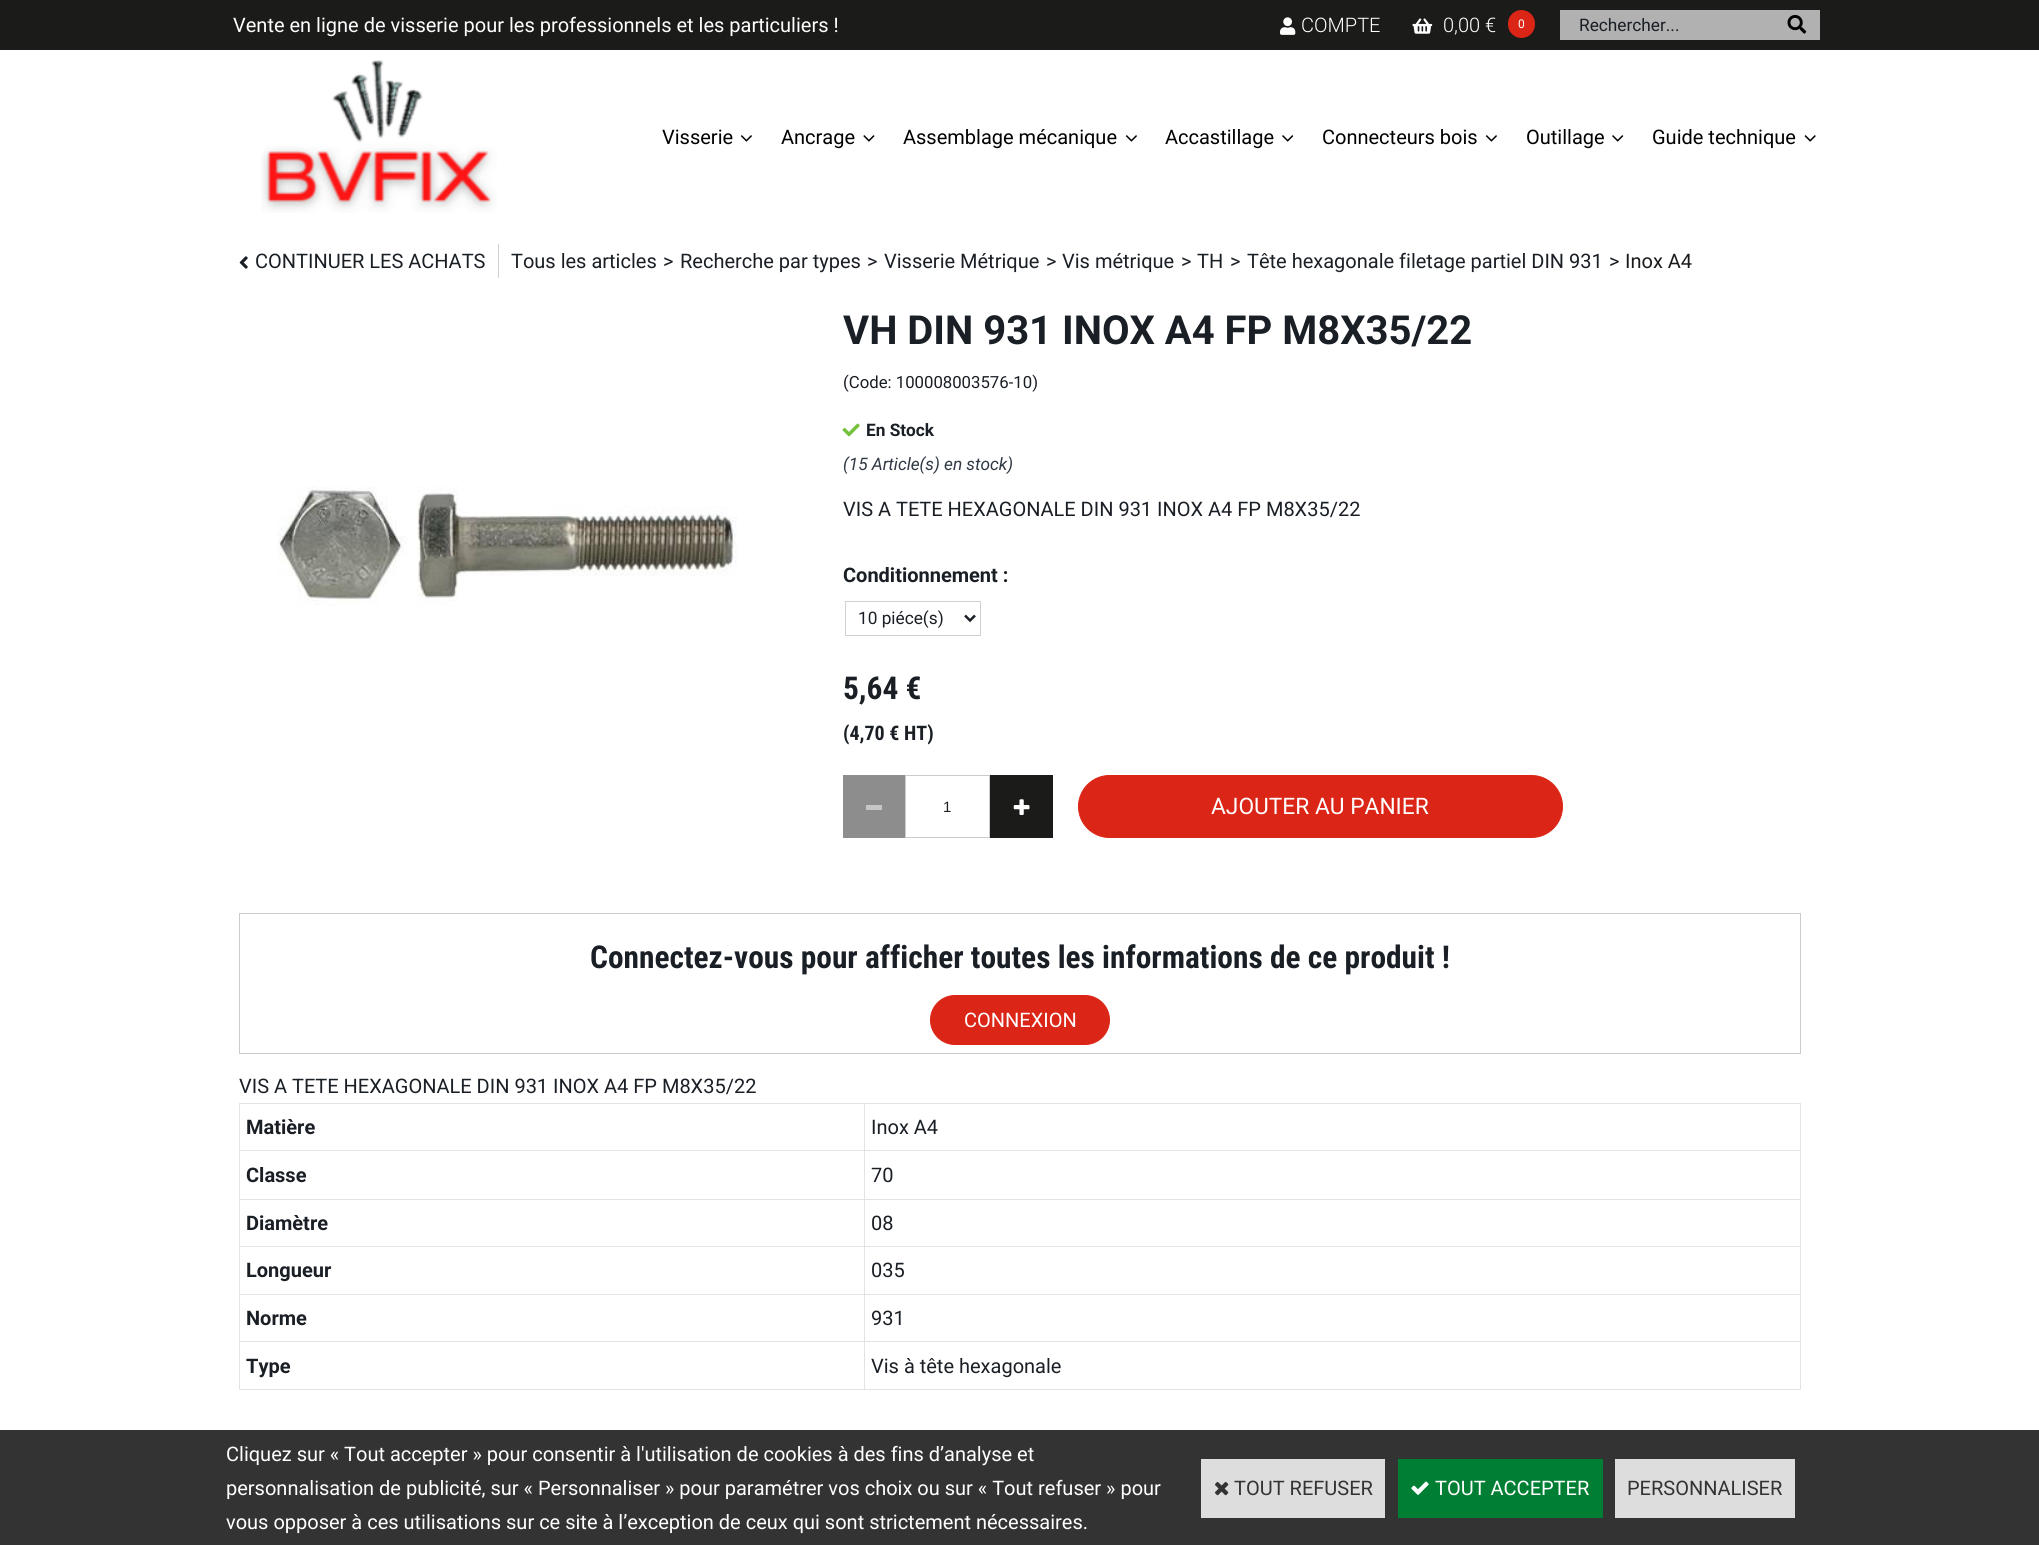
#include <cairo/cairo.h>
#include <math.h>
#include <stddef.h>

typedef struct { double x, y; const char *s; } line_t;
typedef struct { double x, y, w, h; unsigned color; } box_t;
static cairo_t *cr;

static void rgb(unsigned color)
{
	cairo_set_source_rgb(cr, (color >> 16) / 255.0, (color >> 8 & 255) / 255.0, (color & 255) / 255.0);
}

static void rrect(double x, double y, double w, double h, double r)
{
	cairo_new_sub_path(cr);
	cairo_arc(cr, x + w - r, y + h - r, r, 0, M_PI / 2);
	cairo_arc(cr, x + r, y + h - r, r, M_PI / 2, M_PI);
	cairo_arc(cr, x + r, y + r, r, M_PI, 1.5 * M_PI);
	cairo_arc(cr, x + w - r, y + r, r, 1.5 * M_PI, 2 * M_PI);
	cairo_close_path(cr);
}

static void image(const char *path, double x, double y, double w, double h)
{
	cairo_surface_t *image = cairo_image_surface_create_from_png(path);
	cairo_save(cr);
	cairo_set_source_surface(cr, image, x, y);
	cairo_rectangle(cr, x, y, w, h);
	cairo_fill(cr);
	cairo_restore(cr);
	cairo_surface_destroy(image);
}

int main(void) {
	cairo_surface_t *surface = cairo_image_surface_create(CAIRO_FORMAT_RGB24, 2039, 1545);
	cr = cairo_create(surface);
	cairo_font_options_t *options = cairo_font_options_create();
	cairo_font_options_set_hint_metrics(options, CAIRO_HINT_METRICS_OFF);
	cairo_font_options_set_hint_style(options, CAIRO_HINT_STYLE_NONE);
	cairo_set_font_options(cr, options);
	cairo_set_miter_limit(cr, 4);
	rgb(0xffffff);
	cairo_paint(cr);
	rgb(0x1b1b1a);
	cairo_rectangle(cr, 0, 0, 2039, 50);
	cairo_fill(cr);
	image("img/1.png", 1280, 17, 16, 18);
	image("img/2.png", 1412, 18, 21, 16);
	rgb(0xdb2516);
	rrect(1508, 10, 27, 28, 13.5);
	cairo_fill(cr);
	rgb(0xb1b1b1);
	cairo_rectangle(cr, 1560, 10, 260, 30);
	cairo_fill(cr);
	image("img/3.png", 1787, 14, 20, 20);
	image("img/4.png", 261, 60, 236, 153);
	image("img/5.png", 740, 135, 12, 7);
	image("img/6.png", 863, 135, 12, 7);
	image("img/5.png", 1125, 135, 12, 7);
	image("img/7.png", 1282, 135, 12, 7);
	image("img/5.png", 1485, 135, 12, 7);
	image("img/7.png", 1612, 135, 12, 7);
	image("img/8.png", 1804, 135, 12, 7);
	image("img/9.png", 239, 256, 9, 13);
	rgb(0xd0d0d0);
	cairo_rectangle(cr, 498, 244, 1, 34);
	cairo_fill(cr);
	image("img/10.png", 277, 486, 461, 120);
	image("img/11.png", 842, 423, 18, 14);
	cairo_rectangle(cr, 845.5, 601.5, 135, 34);
	cairo_set_line_width(cr, 1);
	cairo_stroke(cr);
	cairo_new_path(cr);
	cairo_move_to(cr, 965, 615.5);
	cairo_line_to(cr, 970, 620.5);
	cairo_line_to(cr, 975, 615.5);
	rgb(0x1a1f26);
	cairo_set_line_width(cr, 2.5);
	cairo_stroke(cr);
	rgb(0x8d8d8d);
	cairo_rectangle(cr, 843, 775, 62, 63);
	cairo_fill(cr);
	rgb(0xc6c6c6);
	cairo_rectangle(cr, 866, 805, 16, 5);
	cairo_fill(cr);
	cairo_rectangle(cr, 905.5, 775.5, 84, 62);
	rgb(0xcccccc);
	cairo_set_line_width(cr, 1);
	cairo_stroke(cr);
	rgb(0x1b1b1a);
	cairo_rectangle(cr, 990, 775, 63, 63);
	cairo_fill(cr);
	image("img/12.png", 1013, 799, 17, 16);
	rgb(0xdb2516);
	rrect(1078.5, 775.5, 484, 62, 31);
	cairo_fill_preserve(cr);
	cairo_stroke(cr);
	cairo_rectangle(cr, 239.5, 913.5, 1561, 140);
	rgb(0xcccccc);
	cairo_stroke(cr);
	rgb(0xdb2516);
	rrect(930.5, 995.5, 179, 49, 24.5);
	cairo_fill_preserve(cr);
	cairo_stroke(cr);
	{
		static const box_t items[] = {
			{239, 1103, 1562, 1, 0xe3e3e3},
			{239, 1150, 625, 1, 0xe3e3e3},
			{239, 1104, 1, 47, 0xe3e3e3},
			{1800, 1104, 1, 286, 0xe3e3e3},
			{864, 1150, 937, 1, 0xe3e3e3},
			{864, 1104, 1, 47, 0xe3e3e3},
			{239, 1199, 1562, 1, 0xe3e3e3},
			{239, 1151, 1, 49, 0xe3e3e3},
			{864, 1151, 1, 49, 0xe3e3e3},
			{239, 1246, 1562, 1, 0xe3e3e3},
			{239, 1200, 1, 48, 0xe3e3e3},
			{864, 1200, 1, 48, 0xe3e3e3},
			{239, 1294, 1562, 1, 0xe3e3e3},
			{239, 1248, 1, 47, 0xe3e3e3},
			{864, 1248, 1, 47, 0xe3e3e3},
			{239, 1341, 1562, 1, 0xe3e3e3},
			{239, 1295, 1, 48, 0xe3e3e3},
			{864, 1295, 1, 48, 0xe3e3e3},
			{239, 1389, 1562, 1, 0xe3e3e3},
			{239, 1343, 1, 47, 0xe3e3e3},
			{864, 1343, 1, 47, 0xe3e3e3},
			{0, 1430, 2039, 115, 0x333333},
			{1201, 1459, 184, 59, 0xdddddd},
		};
		for (size_t i = 0; i < sizeof items / sizeof *items; i++) {
			rgb(items[i].color);
			cairo_rectangle(cr, items[i].x, items[i].y, items[i].w, items[i].h);
			cairo_fill(cr);
		}
	}
	image("img/13.png", 1215, 1482, 14, 14);
	rgb(0x007e33);
	cairo_rectangle(cr, 1398, 1459, 205, 59);
	cairo_fill(cr);
	image("img/14.png", 1411, 1481, 18, 14);
	rgb(0xdddddd);
	cairo_rectangle(cr, 1615, 1459, 180, 59);
	cairo_fill(cr);
	cairo_select_font_face(cr, "Roboto", CAIRO_FONT_SLANT_NORMAL, CAIRO_FONT_WEIGHT_NORMAL);
	cairo_set_font_size(cr, 20);
	rgb(0xffffff);
	cairo_move_to(cr, 233, 32);
	cairo_show_text(cr, "Vente en ligne de visserie pour les professionnels et les particuliers !");
	cairo_select_font_face(cr, "Roboto Light", CAIRO_FONT_SLANT_NORMAL, CAIRO_FONT_WEIGHT_NORMAL);
	cairo_move_to(cr, 1301, 32);
	cairo_show_text(cr, "COMPTE");
	cairo_move_to(cr, 1443, 32);
	cairo_show_text(cr, "0,00 €");
	cairo_select_font_face(cr, "Roboto", CAIRO_FONT_SLANT_NORMAL, CAIRO_FONT_WEIGHT_NORMAL);
	cairo_set_font_size(cr, 12);
	cairo_move_to(cr, 1518, 28);
	cairo_show_text(cr, "0");
	cairo_set_font_size(cr, 17.25);
	rgb(0x1a1f26);
	cairo_move_to(cr, 1579, 31);
	cairo_show_text(cr, "Rechercher...");
	cairo_set_font_size(cr, 20);
	rgb(0x000000);
	{
		static const line_t items[] = {
			{662, 144, "Visserie"},
			{781, 144, "Ancrage"},
			{903, 144, "Assemblage mécanique"},
			{1165, 144, "Accastillage"},
			{1322, 144, "Connecteurs bois"},
			{1526, 144, "Outillage"},
			{1652, 144, "Guide technique"},
		};
		for (size_t i = 0; i < sizeof items / sizeof *items; i++) {
			cairo_move_to(cr, items[i].x, items[i].y);
			cairo_show_text(cr, items[i].s);
		}
	}
	rgb(0x1a1f26);
	{
		static const line_t items[] = {
			{255, 268, "CONTINUER LES ACHATS"},
			{511, 268, "Tous les articles"},
			{663, 268, ">"},
			{680, 268, "Recherche par types"},
			{867, 268, ">"},
			{884, 268, "Visserie Métrique"},
			{1046, 268, ">"},
			{1062, 268, "Vis métrique"},
			{1181, 268, ">"},
			{1197, 268, "TH"},
			{1230, 268, ">"},
			{1247, 268, "Tête hexagonale filetage partiel DIN 931"},
			{1609, 268, ">"},
		};
		for (size_t i = 0; i < sizeof items / sizeof *items; i++) {
			cairo_move_to(cr, items[i].x, items[i].y);
			cairo_show_text(cr, items[i].s);
		}
	}
	rgb(0x1b1b1a);
	cairo_move_to(cr, 1625, 268);
	cairo_show_text(cr, "Inox A4");
	cairo_select_font_face(cr, "Roboto", CAIRO_FONT_SLANT_NORMAL, CAIRO_FONT_WEIGHT_BOLD);
	cairo_set_font_size(cr, 40);
	rgb(0x1a1f26);
	cairo_move_to(cr, 843, 344);
	cairo_show_text(cr, "VH DIN 931 INOX A4 FP M8X35/22");
	cairo_select_font_face(cr, "Roboto", CAIRO_FONT_SLANT_NORMAL, CAIRO_FONT_WEIGHT_NORMAL);
	cairo_set_font_size(cr, 16.75);
	cairo_move_to(cr, 843, 388);
	cairo_show_text(cr, "(Code: 100008003576-10)");
	cairo_select_font_face(cr, "Roboto", CAIRO_FONT_SLANT_NORMAL, CAIRO_FONT_WEIGHT_BOLD);
	cairo_set_font_size(cr, 17.25);
	cairo_move_to(cr, 866, 436);
	cairo_show_text(cr, "En Stock");
	cairo_select_font_face(cr, "Roboto", CAIRO_FONT_SLANT_ITALIC, CAIRO_FONT_WEIGHT_NORMAL);
	rgb(0x2f3844);
	cairo_move_to(cr, 843, 470);
	cairo_show_text(cr, "(15 Article(s) en stock)");
	cairo_select_font_face(cr, "Roboto", CAIRO_FONT_SLANT_NORMAL, CAIRO_FONT_WEIGHT_NORMAL);
	cairo_set_font_size(cr, 20);
	rgb(0x1a1f26);
	cairo_move_to(cr, 843, 516);
	cairo_show_text(cr, "VIS A TETE HEXAGONALE DIN 931 INOX A4 FP M8X35/22");
	cairo_select_font_face(cr, "Roboto", CAIRO_FONT_SLANT_NORMAL, CAIRO_FONT_WEIGHT_BOLD);
	cairo_move_to(cr, 843, 582);
	cairo_show_text(cr, "Conditionnement :");
	cairo_select_font_face(cr, "Roboto", CAIRO_FONT_SLANT_NORMAL, CAIRO_FONT_WEIGHT_NORMAL);
	cairo_set_font_size(cr, 17.25);
	cairo_move_to(cr, 858, 624);
	cairo_show_text(cr, "10 piéce(s)");
	cairo_select_font_face(cr, "Roboto Condensed", CAIRO_FONT_SLANT_NORMAL, CAIRO_FONT_WEIGHT_BOLD);
	cairo_set_font_size(cr, 31.4);
	cairo_move_to(cr, 843, 699);
	cairo_show_text(cr, "5,64 €");
	cairo_set_font_size(cr, 20);
	cairo_move_to(cr, 843, 740);
	cairo_show_text(cr, "(4,70 € HT)");
	cairo_select_font_face(cr, "Liberation Sans", CAIRO_FONT_SLANT_NORMAL, CAIRO_FONT_WEIGHT_NORMAL);
	cairo_set_font_size(cr, 15);
	rgb(0x212121);
	cairo_move_to(cr, 943, 812);
	cairo_show_text(cr, "1");
	cairo_select_font_face(cr, "Roboto", CAIRO_FONT_SLANT_NORMAL, CAIRO_FONT_WEIGHT_NORMAL);
	cairo_set_font_size(cr, 22.75);
	rgb(0xffffff);
	cairo_move_to(cr, 1211, 814);
	cairo_show_text(cr, "AJOUTER AU PANIER");
	cairo_select_font_face(cr, "Roboto Condensed", CAIRO_FONT_SLANT_NORMAL, CAIRO_FONT_WEIGHT_BOLD);
	cairo_set_font_size(cr, 31.4);
	rgb(0x1a1f26);
	cairo_move_to(cr, 590, 968);
	cairo_show_text(cr, "Connectez-vous pour afficher toutes les informations de ce produit !");
	cairo_select_font_face(cr, "Roboto", CAIRO_FONT_SLANT_NORMAL, CAIRO_FONT_WEIGHT_NORMAL);
	cairo_set_font_size(cr, 20);
	rgb(0xffffff);
	cairo_move_to(cr, 964, 1027);
	cairo_show_text(cr, "CONNEXION");
	rgb(0x1a1f26);
	cairo_move_to(cr, 239, 1093);
	cairo_show_text(cr, "VIS A TETE HEXAGONALE DIN 931 INOX A4 FP M8X35/22");
	cairo_select_font_face(cr, "Roboto", CAIRO_FONT_SLANT_NORMAL, CAIRO_FONT_WEIGHT_BOLD);
	cairo_move_to(cr, 246, 1134);
	cairo_show_text(cr, "Matière");
	cairo_select_font_face(cr, "Roboto", CAIRO_FONT_SLANT_NORMAL, CAIRO_FONT_WEIGHT_NORMAL);
	cairo_move_to(cr, 871, 1134);
	cairo_show_text(cr, "Inox A4");
	cairo_select_font_face(cr, "Roboto", CAIRO_FONT_SLANT_NORMAL, CAIRO_FONT_WEIGHT_BOLD);
	cairo_move_to(cr, 246, 1182);
	cairo_show_text(cr, "Classe");
	cairo_select_font_face(cr, "Roboto", CAIRO_FONT_SLANT_NORMAL, CAIRO_FONT_WEIGHT_NORMAL);
	cairo_move_to(cr, 871, 1182);
	cairo_show_text(cr, "70");
	cairo_select_font_face(cr, "Roboto", CAIRO_FONT_SLANT_NORMAL, CAIRO_FONT_WEIGHT_BOLD);
	cairo_move_to(cr, 246, 1230);
	cairo_show_text(cr, "Diamètre");
	cairo_select_font_face(cr, "Roboto", CAIRO_FONT_SLANT_NORMAL, CAIRO_FONT_WEIGHT_NORMAL);
	cairo_move_to(cr, 871, 1230);
	cairo_show_text(cr, "08");
	cairo_select_font_face(cr, "Roboto", CAIRO_FONT_SLANT_NORMAL, CAIRO_FONT_WEIGHT_BOLD);
	cairo_move_to(cr, 246, 1277);
	cairo_show_text(cr, "Longueur");
	cairo_select_font_face(cr, "Roboto", CAIRO_FONT_SLANT_NORMAL, CAIRO_FONT_WEIGHT_NORMAL);
	cairo_move_to(cr, 871, 1277);
	cairo_show_text(cr, "035");
	cairo_select_font_face(cr, "Roboto", CAIRO_FONT_SLANT_NORMAL, CAIRO_FONT_WEIGHT_BOLD);
	cairo_move_to(cr, 246, 1325);
	cairo_show_text(cr, "Norme");
	cairo_select_font_face(cr, "Roboto", CAIRO_FONT_SLANT_NORMAL, CAIRO_FONT_WEIGHT_NORMAL);
	cairo_move_to(cr, 871, 1325);
	cairo_show_text(cr, "931");
	cairo_select_font_face(cr, "Roboto", CAIRO_FONT_SLANT_NORMAL, CAIRO_FONT_WEIGHT_BOLD);
	cairo_move_to(cr, 246, 1373);
	cairo_show_text(cr, "Type");
	cairo_select_font_face(cr, "Roboto", CAIRO_FONT_SLANT_NORMAL, CAIRO_FONT_WEIGHT_NORMAL);
	cairo_move_to(cr, 871, 1373);
	cairo_show_text(cr, "Vis à tête hexagonale");
	rgb(0xffffff);
	{
		static const line_t items[] = {
			{226, 1461, "Cliquez sur « Tout accepter » pour consentir à l'utilisation de cookies à des fins d’analyse et"},
			{226, 1495, "personnalisation de publicité, sur « Personnaliser » pour paramétrer vos choix ou sur « Tout refuser » pour"},
			{226, 1529, "vous opposer à ces utilisations sur ce site à l’exception de ceux qui sont strictement nécessaires."},
		};
		for (size_t i = 0; i < sizeof items / sizeof *items; i++) {
			cairo_move_to(cr, items[i].x, items[i].y);
			cairo_show_text(cr, items[i].s);
		}
	}
	rgb(0x333333);
	cairo_move_to(cr, 1234, 1495);
	cairo_show_text(cr, "TOUT REFUSER");
	rgb(0xffffff);
	cairo_move_to(cr, 1435, 1495);
	cairo_show_text(cr, "TOUT ACCEPTER");
	rgb(0x333333);
	cairo_move_to(cr, 1627, 1495);
	cairo_show_text(cr, "PERSONNALISER");
	cairo_surface_write_to_png(surface, "page.png");
	cairo_font_options_destroy(options);
	cairo_destroy(cr);
	cairo_surface_destroy(surface);
	return 0;
}
